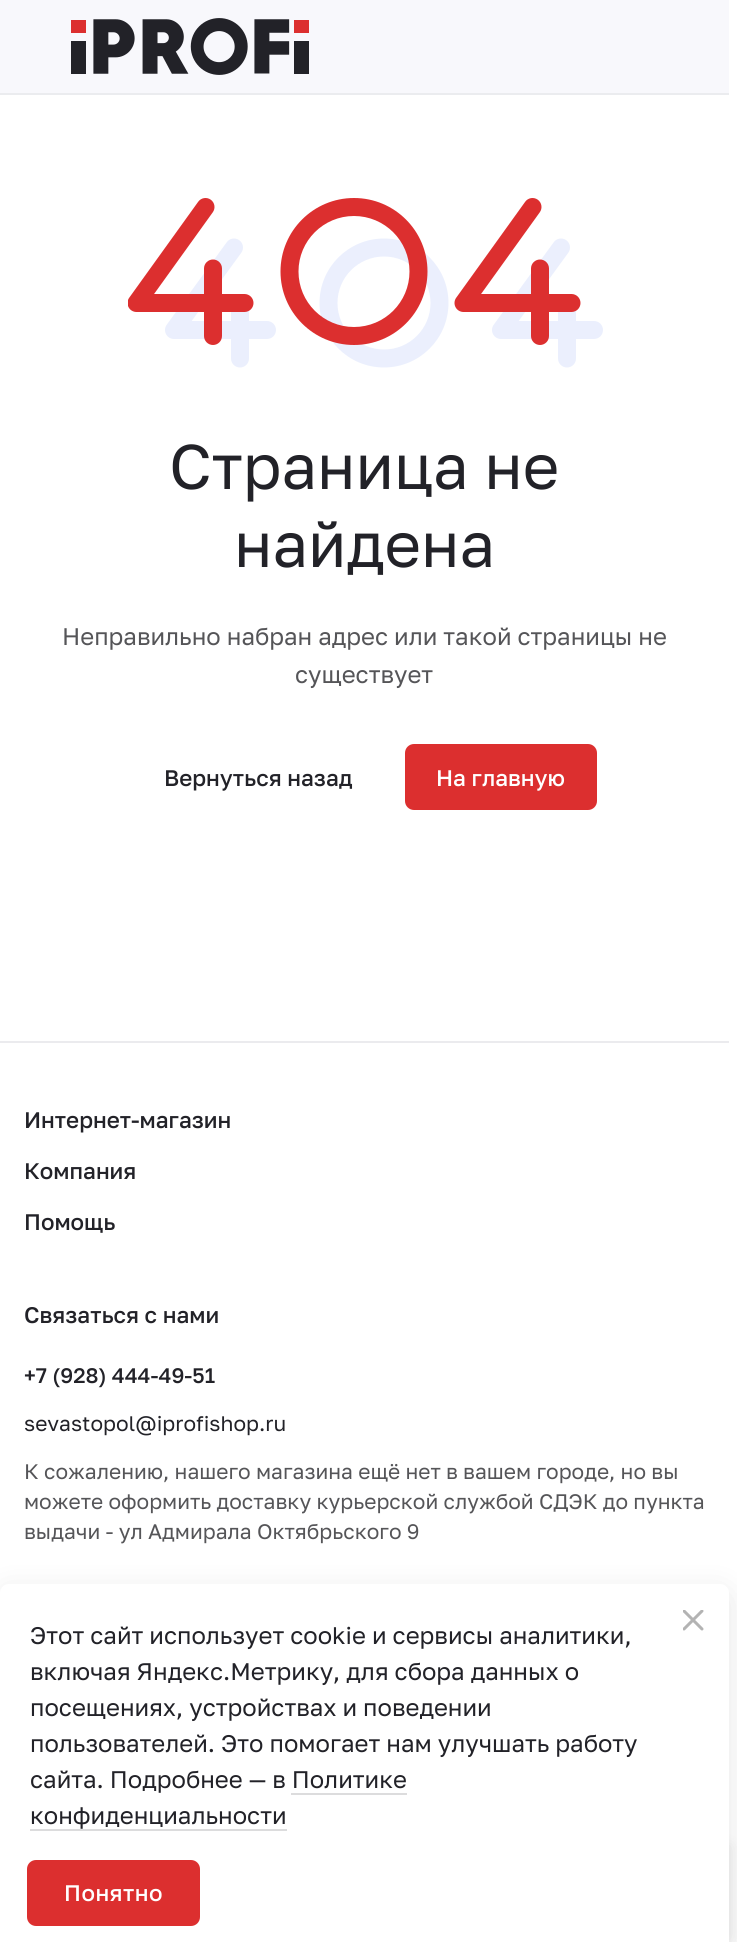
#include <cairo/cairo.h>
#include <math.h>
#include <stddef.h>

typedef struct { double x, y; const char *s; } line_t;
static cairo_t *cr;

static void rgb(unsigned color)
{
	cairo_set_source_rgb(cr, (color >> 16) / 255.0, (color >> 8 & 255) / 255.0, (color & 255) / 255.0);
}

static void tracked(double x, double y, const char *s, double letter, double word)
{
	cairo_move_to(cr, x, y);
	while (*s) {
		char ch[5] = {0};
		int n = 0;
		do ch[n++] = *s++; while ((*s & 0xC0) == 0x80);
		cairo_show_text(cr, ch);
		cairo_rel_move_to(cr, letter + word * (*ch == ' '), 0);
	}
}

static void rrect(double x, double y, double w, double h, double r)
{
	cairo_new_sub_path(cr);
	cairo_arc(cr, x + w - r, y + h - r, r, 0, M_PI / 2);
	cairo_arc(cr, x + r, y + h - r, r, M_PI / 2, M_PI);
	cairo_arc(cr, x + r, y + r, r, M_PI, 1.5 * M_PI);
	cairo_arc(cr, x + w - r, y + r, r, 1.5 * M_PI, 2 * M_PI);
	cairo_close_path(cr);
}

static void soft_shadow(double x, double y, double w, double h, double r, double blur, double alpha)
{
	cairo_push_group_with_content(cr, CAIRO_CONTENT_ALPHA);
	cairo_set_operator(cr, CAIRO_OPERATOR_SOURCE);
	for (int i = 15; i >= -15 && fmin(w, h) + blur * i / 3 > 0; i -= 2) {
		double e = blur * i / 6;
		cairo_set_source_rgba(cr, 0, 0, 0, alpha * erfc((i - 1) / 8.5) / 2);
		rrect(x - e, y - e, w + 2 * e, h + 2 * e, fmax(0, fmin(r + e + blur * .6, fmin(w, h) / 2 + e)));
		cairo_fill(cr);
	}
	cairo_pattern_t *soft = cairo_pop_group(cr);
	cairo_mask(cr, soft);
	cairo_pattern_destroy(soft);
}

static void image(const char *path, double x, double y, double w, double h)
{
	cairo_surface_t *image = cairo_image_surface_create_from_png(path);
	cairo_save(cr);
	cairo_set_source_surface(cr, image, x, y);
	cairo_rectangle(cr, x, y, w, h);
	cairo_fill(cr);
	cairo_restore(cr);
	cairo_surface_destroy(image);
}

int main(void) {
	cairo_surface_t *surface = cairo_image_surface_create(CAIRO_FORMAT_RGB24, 737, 1942);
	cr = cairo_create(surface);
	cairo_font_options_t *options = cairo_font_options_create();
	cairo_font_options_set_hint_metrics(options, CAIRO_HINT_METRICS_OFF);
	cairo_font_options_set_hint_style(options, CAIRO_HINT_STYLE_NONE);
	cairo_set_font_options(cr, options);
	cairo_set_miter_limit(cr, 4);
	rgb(0xffffff);
	cairo_paint(cr);
	rgb(0xebecef);
	cairo_rectangle(cr, 0, 93, 729, 2);
	cairo_fill(cr);
	rgb(0xf8f8fc);
	cairo_rectangle(cr, 0, 0, 729, 93);
	cairo_fill(cr);
	image("img/1.png", 71, 18, 238, 57);
	image("img/2.png", 128, 198, 475, 170);
	rgb(0xdc2f2f);
	rrect(406, 745, 190, 64, 8);
	cairo_fill_preserve(cr);
	cairo_stroke(cr);
	rgb(0xebebee);
	cairo_rectangle(cr, 0, 1041, 729, 2);
	cairo_fill(cr);
	rgb(0x000000);
	soft_shadow(0, 1847, 729, 91, 0, 7.5, 0.1);
	soft_shadow(0, 1592, 729, 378, 9, 15, 0.1);
	rgb(0xffffff);
	rrect(0, 1584, 729, 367, 9);
	cairo_fill(cr);
	image("img/3.png", 683, 1610, 21, 21);
	rgb(0xdcdcdd);
	cairo_rectangle(cr, 291, 1793, 116, 2);
	cairo_fill(cr);
	cairo_rectangle(cr, 30, 1829, 257, 2);
	cairo_fill(cr);
	rgb(0xdc2f2f);
	rrect(28, 1861, 171, 64, 8);
	cairo_fill_preserve(cr);
	cairo_stroke(cr);
	cairo_select_font_face(cr, "Golos Text", CAIRO_FONT_SLANT_NORMAL, CAIRO_FONT_WEIGHT_NORMAL);
	cairo_set_font_size(cr, 63);
	rgb(0x222228);
	cairo_move_to(cr, 169, 489);
	cairo_show_text(cr, "Страница не");
	cairo_move_to(cr, 234, 567);
	cairo_show_text(cr, "найдена");
	cairo_set_font_size(cr, 24);
	rgb(0x555558);
	cairo_move_to(cr, 62, 645);
	cairo_show_text(cr, "Неправильно набран адрес или такой страницы не");
	cairo_move_to(cr, 295, 683);
	cairo_show_text(cr, "существует");
	cairo_select_font_face(cr, "Golos Text Medium", CAIRO_FONT_SLANT_NORMAL, CAIRO_FONT_WEIGHT_NORMAL);
	cairo_set_font_size(cr, 22.5);
	rgb(0x222228);
	cairo_move_to(cr, 164, 786);
	cairo_show_text(cr, "Вернуться назад");
	rgb(0xffffff);
	cairo_move_to(cr, 436, 786);
	cairo_show_text(cr, "На главную");
	rgb(0x222228);
	{
		static const line_t items[] = {
			{24, 1128, "Интернет-магазин"},
			{24, 1179, "Компания"},
			{24, 1230, "Помощь"},
			{24, 1323, "Связаться с нами"},
		};
		for (size_t i = 0; i < sizeof items / sizeof *items; i++) {
			cairo_move_to(cr, items[i].x, items[i].y);
			cairo_show_text(cr, items[i].s);
		}
	}
	cairo_set_font_size(cr, 21);
	cairo_move_to(cr, 24, 1383);
	cairo_show_text(cr, "+7 (928) 444-49-51");
	cairo_select_font_face(cr, "Golos Text", CAIRO_FONT_SLANT_NORMAL, CAIRO_FONT_WEIGHT_NORMAL);
	cairo_move_to(cr, 24, 1431);
	cairo_show_text(cr, "sevastopol@iprofishop.ru");
	rgb(0x555558);
	{
		static const line_t items[] = {
			{24, 1479, "К сожалению, нашего магазина ещё нет в вашем городе, но вы"},
			{24, 1509, "можете оформить доставку курьерской службой СДЭК до пункта"},
			{24, 1539, "выдачи - ул Адмирала Октябрьского 9"},
		};
		for (size_t i = 0; i < sizeof items / sizeof *items; i++) {
			cairo_move_to(cr, items[i].x, items[i].y);
			cairo_show_text(cr, items[i].s);
		}
	}
	cairo_set_font_size(cr, 24);
	rgb(0x222228);
	{
		static const line_t items[] = {
			{30, 1644, "Этот сайт использует cookie и сервисы аналитики,"},
			{30, 1680, "включая Яндекс.Метрику, для сбора данных о"},
			{30, 1716, "посещениях, устройствах и поведении"},
			{30, 1752, "пользователей. Это помогает нам улучшать работу"},
			{30, 1788, "сайта. Подробнее — в Политике"},
			{30, 1824, "конфиденциальности"},
		};
		for (size_t i = 0; i < sizeof items / sizeof *items; i++) {
			cairo_move_to(cr, items[i].x, items[i].y);
			cairo_show_text(cr, items[i].s);
		}
	}
	cairo_select_font_face(cr, "Golos Text Medium", CAIRO_FONT_SLANT_NORMAL, CAIRO_FONT_WEIGHT_NORMAL);
	cairo_set_font_size(cr, 22.5);
	rgb(0xffffff);
	tracked(64, 1901, "Понятно", 0.5, 0);
	cairo_surface_write_to_png(surface, "page.png");
	cairo_font_options_destroy(options);
	cairo_destroy(cr);
	cairo_surface_destroy(surface);
	return 0;
}
